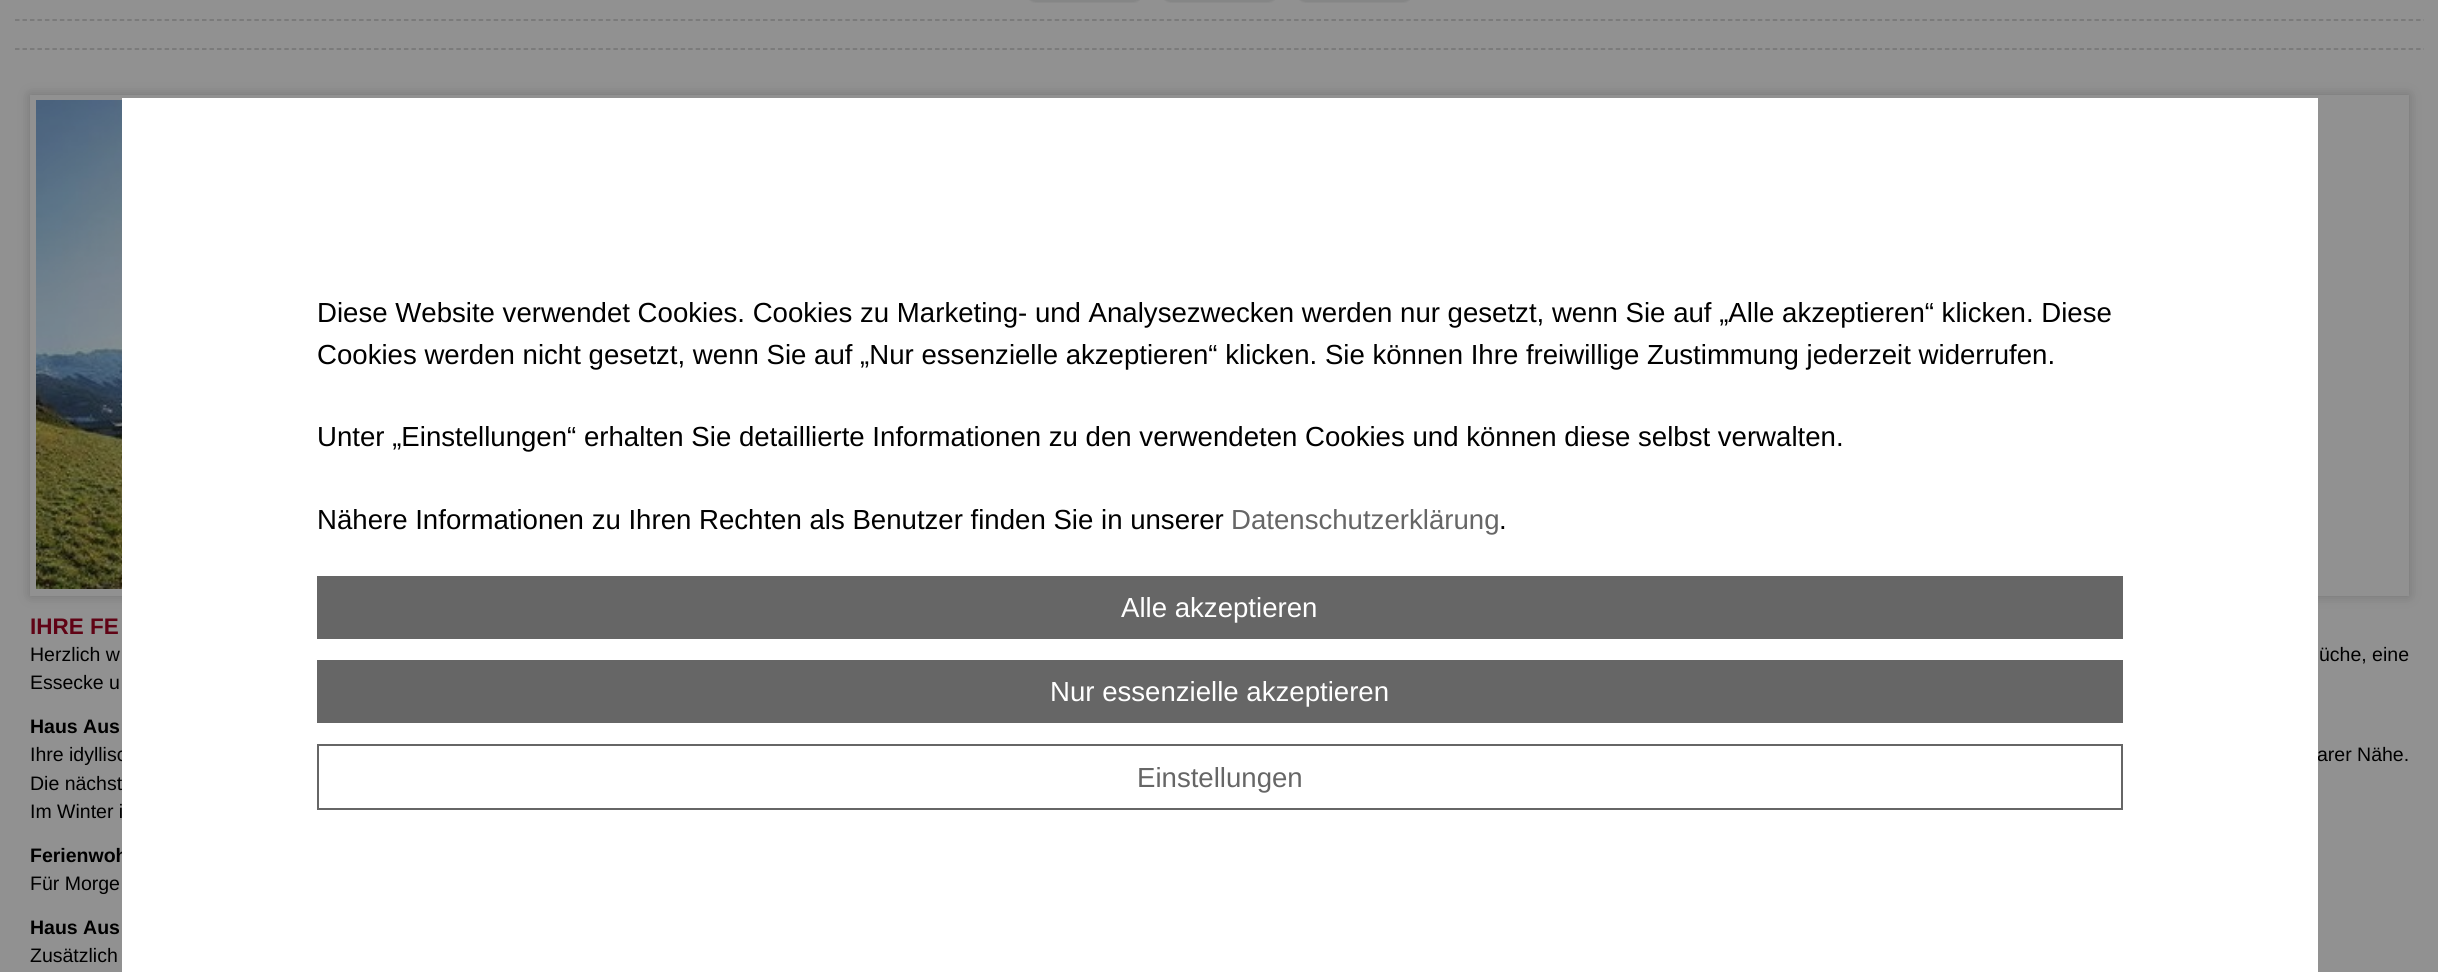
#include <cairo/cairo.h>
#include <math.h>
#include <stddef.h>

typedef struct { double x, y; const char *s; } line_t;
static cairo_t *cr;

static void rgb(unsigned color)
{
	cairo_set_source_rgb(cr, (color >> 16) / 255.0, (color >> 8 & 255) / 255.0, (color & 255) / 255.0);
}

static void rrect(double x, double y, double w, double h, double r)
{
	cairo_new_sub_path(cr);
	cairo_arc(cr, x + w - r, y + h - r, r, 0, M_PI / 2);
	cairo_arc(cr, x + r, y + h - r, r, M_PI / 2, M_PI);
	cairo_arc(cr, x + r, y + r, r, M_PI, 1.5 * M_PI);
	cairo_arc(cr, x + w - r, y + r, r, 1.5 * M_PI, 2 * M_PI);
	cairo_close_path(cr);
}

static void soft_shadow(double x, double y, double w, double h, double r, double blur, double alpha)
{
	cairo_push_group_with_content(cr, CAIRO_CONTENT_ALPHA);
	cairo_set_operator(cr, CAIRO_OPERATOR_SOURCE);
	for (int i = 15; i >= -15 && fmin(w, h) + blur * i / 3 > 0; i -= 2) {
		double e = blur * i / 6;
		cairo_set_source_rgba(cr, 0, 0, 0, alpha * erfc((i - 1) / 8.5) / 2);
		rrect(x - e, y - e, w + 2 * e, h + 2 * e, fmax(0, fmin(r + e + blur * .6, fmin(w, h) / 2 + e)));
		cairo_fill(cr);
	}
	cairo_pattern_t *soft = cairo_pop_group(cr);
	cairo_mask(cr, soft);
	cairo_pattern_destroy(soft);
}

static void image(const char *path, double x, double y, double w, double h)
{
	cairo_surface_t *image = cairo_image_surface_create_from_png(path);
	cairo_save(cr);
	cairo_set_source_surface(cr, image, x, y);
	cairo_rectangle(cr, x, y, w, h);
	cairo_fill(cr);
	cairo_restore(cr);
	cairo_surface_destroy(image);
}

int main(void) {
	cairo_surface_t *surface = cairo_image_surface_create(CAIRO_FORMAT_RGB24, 2438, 972);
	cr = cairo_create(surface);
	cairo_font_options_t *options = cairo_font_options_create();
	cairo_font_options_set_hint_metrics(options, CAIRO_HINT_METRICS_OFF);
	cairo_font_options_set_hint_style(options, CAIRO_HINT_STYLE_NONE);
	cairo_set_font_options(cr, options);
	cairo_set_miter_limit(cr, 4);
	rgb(0x919191);
	cairo_paint(cr);
	cairo_new_path(cr);
	cairo_move_to(cr, 15, 49);
	cairo_line_to(cr, 2424, 49);
	rgb(0x747474);
	cairo_set_line_width(cr, 1.5);
	cairo_set_dash(cr, (double[]){4.5, 2.98}, 2, 0);
	cairo_stroke(cr);
	cairo_new_path(cr);
	cairo_move_to(cr, 15, 20);
	cairo_line_to(cr, 2424, 20);
	cairo_stroke(cr);
	image("img/1.png", 1029, 0, 111, 3);
	image("img/2.png", 1164, 0, 111, 3);
	image("img/3.png", 1299, 0, 111, 3);
	cairo_save(cr);
	cairo_set_fill_rule(cr, CAIRO_FILL_RULE_EVEN_ODD);
	cairo_new_path(cr);
	cairo_move_to(cr, 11, 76);
	cairo_line_to(cr, 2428, 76);
	cairo_line_to(cr, 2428, 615);
	cairo_line_to(cr, 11, 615);
	cairo_close_path(cr);
	cairo_move_to(cr, 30, 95);
	cairo_line_to(cr, 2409, 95);
	cairo_line_to(cr, 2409, 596);
	cairo_line_to(cr, 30, 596);
	cairo_close_path(cr);
	cairo_clip(cr);
	rgb(0x000000);
	soft_shadow(30, 95, 2379, 501, 0, 6, 0.2);
	cairo_restore(cr);
	cairo_rectangle(cr, 33, 98, 2373, 495);
	rgb(0x919191);
	cairo_set_line_width(cr, 6);
	cairo_set_dash(cr, NULL, 0, 0);
	cairo_stroke(cr);
	image("img/4.png", 36, 100, 86, 489);
	cairo_select_font_face(cr, "Liberation Sans", CAIRO_FONT_SLANT_NORMAL, CAIRO_FONT_WEIGHT_BOLD);
	cairo_set_font_size(cr, 22.5);
	rgb(0x600315);
	cairo_move_to(cr, 30, 634);
	cairo_show_text(cr, "IHRE FE");
	cairo_select_font_face(cr, "Liberation Sans", CAIRO_FONT_SLANT_NORMAL, CAIRO_FONT_WEIGHT_NORMAL);
	cairo_set_font_size(cr, 19.5);
	rgb(0x000000);
	{
		static const line_t items[] = {
			{30, 661, "Herzlich w"},
			{2319, 661, "üche, eine"},
			{30, 689, "Essecke u"},
		};
		for (size_t i = 0; i < sizeof items / sizeof *items; i++) {
			cairo_move_to(cr, items[i].x, items[i].y);
			cairo_show_text(cr, items[i].s);
		}
	}
	cairo_select_font_face(cr, "Liberation Sans", CAIRO_FONT_SLANT_NORMAL, CAIRO_FONT_WEIGHT_BOLD);
	cairo_move_to(cr, 30, 733);
	cairo_show_text(cr, "Haus Aus");
	cairo_select_font_face(cr, "Liberation Sans", CAIRO_FONT_SLANT_NORMAL, CAIRO_FONT_WEIGHT_NORMAL);
	{
		static const line_t items[] = {
			{30, 761, "Ihre idyllisc"},
			{2317, 761, "arer Nähe."},
			{30, 790, "Die nächst"},
			{30, 818, "Im Winter i"},
		};
		for (size_t i = 0; i < sizeof items / sizeof *items; i++) {
			cairo_move_to(cr, items[i].x, items[i].y);
			cairo_show_text(cr, items[i].s);
		}
	}
	cairo_select_font_face(cr, "Liberation Sans", CAIRO_FONT_SLANT_NORMAL, CAIRO_FONT_WEIGHT_BOLD);
	cairo_move_to(cr, 30, 862);
	cairo_show_text(cr, "Ferienwoh");
	rgb(0xffffff);
	cairo_rectangle(cr, 122, 98, 2196, 874);
	cairo_fill(cr);
	cairo_select_font_face(cr, "Liberation Sans", CAIRO_FONT_SLANT_NORMAL, CAIRO_FONT_WEIGHT_NORMAL);
	cairo_set_font_size(cr, 27.6);
	rgb(0x000000);
	cairo_move_to(cr, 1499, 529);
	cairo_show_text(cr, ".");
	rgb(0x666666);
	cairo_move_to(cr, 1231, 529);
	cairo_show_text(cr, "Datenschutzerklärung");
	rgb(0x000000);
	{
		static const line_t items[] = {
			{317, 529, "Nähere Informationen zu Ihren Rechten als Benutzer finden Sie in unserer"},
			{317, 446, "Unter „Einstellungen“ erhalten Sie detaillierte Informationen zu den verwendeten Cookies und können diese selbst verwalten."},
			{317, 364, "Cookies werden nicht gesetzt, wenn Sie auf „Nur essenzielle akzeptieren“ klicken. Sie können Ihre freiwillige Zustimmung jederzeit widerrufen."},
			{317, 322, "Diese Website verwendet Cookies. Cookies zu Marketing- und Analysezwecken werden nur gesetzt, wenn Sie auf „Alle akzeptieren“ klicken. Diese"},
		};
		for (size_t i = 0; i < sizeof items / sizeof *items; i++) {
			cairo_move_to(cr, items[i].x, items[i].y);
			cairo_show_text(cr, items[i].s);
		}
	}
	cairo_rectangle(cr, 318, 745, 1804, 64);
	rgb(0x666666);
	cairo_set_line_width(cr, 2);
	cairo_stroke(cr);
	cairo_move_to(cr, 1137, 787);
	cairo_show_text(cr, "Einstellungen");
	cairo_rectangle(cr, 317, 660, 1806, 63);
	cairo_fill(cr);
	rgb(0xffffff);
	cairo_move_to(cr, 1050, 701);
	cairo_show_text(cr, "Nur essenzielle akzeptieren");
	rgb(0x666666);
	cairo_rectangle(cr, 317, 576, 1806, 63);
	cairo_fill(cr);
	rgb(0xffffff);
	cairo_move_to(cr, 1121, 617);
	cairo_show_text(cr, "Alle akzeptieren");
	cairo_set_font_size(cr, 19.5);
	rgb(0x000000);
	cairo_move_to(cr, 30, 890);
	cairo_show_text(cr, "Für Morge");
	cairo_select_font_face(cr, "Liberation Sans", CAIRO_FONT_SLANT_NORMAL, CAIRO_FONT_WEIGHT_BOLD);
	cairo_move_to(cr, 30, 934);
	cairo_show_text(cr, "Haus Aus");
	cairo_select_font_face(cr, "Liberation Sans", CAIRO_FONT_SLANT_NORMAL, CAIRO_FONT_WEIGHT_NORMAL);
	cairo_move_to(cr, 30, 962);
	cairo_show_text(cr, "Zusätzlich");
	cairo_surface_write_to_png(surface, "page.png");
	cairo_font_options_destroy(options);
	cairo_destroy(cr);
	cairo_surface_destroy(surface);
	return 0;
}
